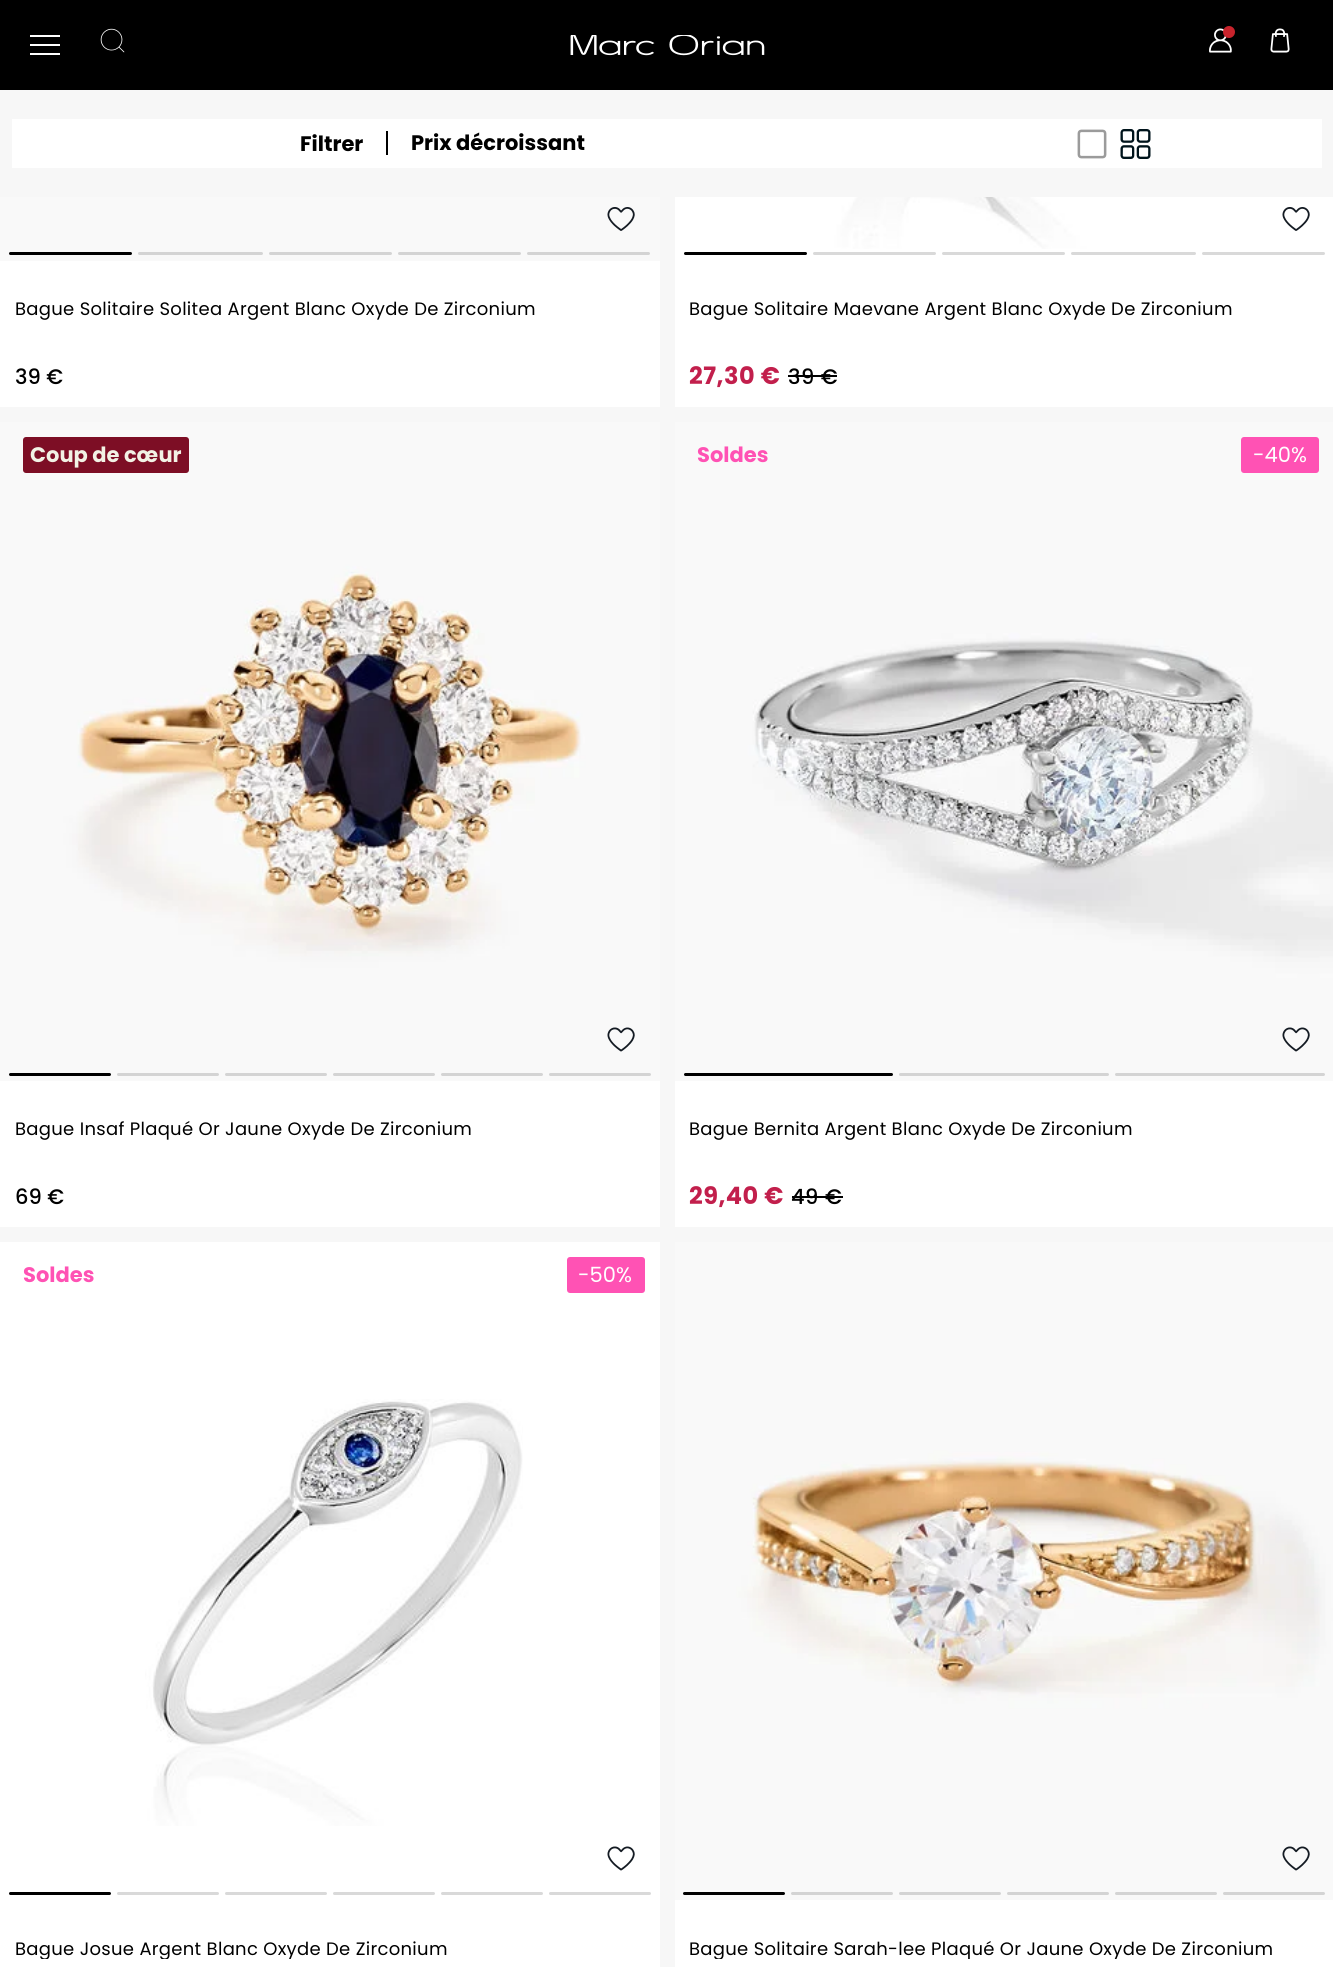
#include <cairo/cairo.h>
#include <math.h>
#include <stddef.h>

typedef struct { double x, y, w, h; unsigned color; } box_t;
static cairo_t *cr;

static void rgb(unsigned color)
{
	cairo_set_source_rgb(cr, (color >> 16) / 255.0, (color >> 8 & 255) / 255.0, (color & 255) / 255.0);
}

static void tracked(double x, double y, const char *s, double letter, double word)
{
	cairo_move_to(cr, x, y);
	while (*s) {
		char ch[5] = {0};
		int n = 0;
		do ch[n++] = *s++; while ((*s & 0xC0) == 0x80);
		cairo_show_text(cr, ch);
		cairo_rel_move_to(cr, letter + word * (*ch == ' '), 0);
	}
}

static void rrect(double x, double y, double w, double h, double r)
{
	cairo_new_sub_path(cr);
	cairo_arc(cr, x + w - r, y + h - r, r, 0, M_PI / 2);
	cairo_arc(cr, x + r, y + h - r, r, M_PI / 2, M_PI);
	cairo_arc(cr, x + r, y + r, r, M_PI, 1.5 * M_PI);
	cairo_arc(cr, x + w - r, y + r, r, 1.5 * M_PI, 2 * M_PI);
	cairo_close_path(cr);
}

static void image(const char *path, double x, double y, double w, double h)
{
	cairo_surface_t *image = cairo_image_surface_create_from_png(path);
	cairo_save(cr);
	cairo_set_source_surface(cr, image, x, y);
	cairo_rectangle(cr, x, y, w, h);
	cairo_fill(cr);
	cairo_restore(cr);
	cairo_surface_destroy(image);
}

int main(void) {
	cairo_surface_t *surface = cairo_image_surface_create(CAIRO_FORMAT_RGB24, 1333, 1967);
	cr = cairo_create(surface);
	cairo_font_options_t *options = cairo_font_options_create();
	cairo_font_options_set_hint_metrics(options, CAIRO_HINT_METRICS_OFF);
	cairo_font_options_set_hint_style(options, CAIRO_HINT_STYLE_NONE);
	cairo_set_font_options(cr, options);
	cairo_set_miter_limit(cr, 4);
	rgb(0xf7f7f7);
	cairo_paint(cr);
	{
		static const box_t items[] = {
			{0, 0, 1333, 90, 0x000000},
			{30, 35, 30, 2, 0xffffff},
			{30, 44, 30, 2, 0xffffff},
			{30, 53, 30, 2, 0xffffff},
		};
		for (size_t i = 0; i < sizeof items / sizeof *items; i++) {
			rgb(items[i].color);
			cairo_rectangle(cr, items[i].x, items[i].y, items[i].w, items[i].h);
			cairo_fill(cr);
		}
	}
	image("img/1.png", 100, 28, 25, 25);
	image("img/2.png", 1209, 28, 23, 25);
	rgb(0xc8232c);
	cairo_arc(cr, 1229, 32, 6, 0, 2 * M_PI);
	cairo_fill(cr);
	image("img/3.png", 1270, 28, 20, 25);
	image("img/4.png", 570, 35, 195, 21);
	rgb(0xffffff);
	cairo_rectangle(cr, 12, 119, 1310, 49);
	cairo_fill(cr);
	rgb(0x000000);
	cairo_rectangle(cr, 386, 131, 2, 24);
	cairo_fill(cr);
	image("img/5.png", 1077, 129, 30, 30);
	image("img/6.png", 1120, 129, 31, 30);
	rgb(0xffffff);
	cairo_rectangle(cr, 0, 261, 660, 146);
	cairo_fill(cr);
	image("img/7.png", 0, 197, 660, 64);
	rgb(0x000000);
	rrect(9, 252, 123, 3, 1.5);
	cairo_fill(cr);
	rgb(0xd4d4d4);
	rrect(138, 252, 125, 3, 1.5);
	cairo_fill(cr);
	rrect(269, 252, 123, 3, 1.5);
	cairo_fill(cr);
	rrect(398, 252, 123, 3, 1.5);
	cairo_fill(cr);
	rrect(527, 252, 123, 3, 1.5);
	cairo_fill(cr);
	image("img/8.png", 607, 207, 28, 24);
	rgb(0xffffff);
	cairo_rectangle(cr, 675, 197, 658, 210);
	cairo_fill(cr);
	image("img/9.png", 829, 197, 307, 52);
	rgb(0x000000);
	rrect(684, 252, 123, 3, 1.5);
	cairo_fill(cr);
	rgb(0xd9d9d9);
	rrect(813, 252, 123, 3, 1.5);
	cairo_fill(cr);
	rrect(942, 252, 123, 3, 1.5);
	cairo_fill(cr);
	rrect(1071, 252, 125, 3, 1.5);
	cairo_fill(cr);
	rrect(1202, 252, 123, 3, 1.5);
	cairo_fill(cr);
	image("img/10.png", 1282, 207, 28, 24);
	rgb(0x000000);
	cairo_rectangle(cr, 788, 375, 49, 2);
	cairo_fill(cr);
	rgb(0xffffff);
	cairo_rectangle(cr, 0, 1081, 660, 146);
	cairo_fill(cr);
	image("img/11.png", 0, 422, 660, 659);
	rgb(0x000000);
	rrect(9, 1073, 102, 3, 1.5);
	cairo_fill(cr);
	rgb(0xd4d4d4);
	rrect(117, 1073, 102, 3, 1.5);
	cairo_fill(cr);
	rrect(225, 1073, 102, 3, 1.5);
	cairo_fill(cr);
	rrect(333, 1073, 102, 3, 1.5);
	cairo_fill(cr);
	rrect(441, 1073, 102, 3, 1.5);
	cairo_fill(cr);
	rrect(549, 1073, 102, 3, 1.5);
	cairo_fill(cr);
	rgb(0x7d0e25);
	rrect(23, 437, 166, 36, 3);
	cairo_fill(cr);
	image("img/12.png", 607, 1027, 28, 25);
	rgb(0xffffff);
	cairo_rectangle(cr, 675, 1081, 658, 146);
	cairo_fill(cr);
	image("img/13.png", 675, 422, 658, 659);
	rgb(0x000000);
	rrect(684, 1073, 209, 3, 1.5);
	cairo_fill(cr);
	rgb(0xd4d4d4);
	rrect(899, 1073, 210, 3, 1.5);
	cairo_fill(cr);
	rrect(1115, 1073, 210, 3, 1.5);
	cairo_fill(cr);
	rgb(0xff52b4);
	rrect(1241, 437, 78, 36, 3);
	cairo_fill(cr);
	image("img/12.png", 1282, 1027, 28, 25);
	rgb(0x000000);
	cairo_rectangle(cr, 792, 1196, 51, 2);
	cairo_fill(cr);
	rgb(0xffffff);
	cairo_rectangle(cr, 0, 1242, 660, 725);
	cairo_fill(cr);
	rgb(0xff52b4);
	rrect(567, 1257, 78, 36, 3);
	cairo_fill(cr);
	image("img/14.png", 145, 1399, 378, 427);
	rgb(0x000000);
	rrect(9, 1892, 102, 3, 1.5);
	cairo_fill(cr);
	rgb(0xd9d9d9);
	rrect(117, 1892, 102, 3, 1.5);
	cairo_fill(cr);
	rrect(225, 1892, 102, 3, 1.5);
	cairo_fill(cr);
	rrect(333, 1892, 102, 3, 1.5);
	cairo_fill(cr);
	rrect(441, 1892, 102, 3, 1.5);
	cairo_fill(cr);
	rrect(549, 1892, 102, 3, 1.5);
	cairo_fill(cr);
	image("img/15.png", 607, 1846, 28, 25);
	rgb(0xffffff);
	cairo_rectangle(cr, 675, 1900, 658, 67);
	cairo_fill(cr);
	image("img/16.png", 675, 1242, 658, 658);
	rgb(0x000000);
	rrect(683, 1892, 102, 3, 1.5);
	cairo_fill(cr);
	rgb(0xd4d4d4);
	rrect(791, 1892, 102, 3, 1.5);
	cairo_fill(cr);
	rrect(899, 1892, 102, 3, 1.5);
	cairo_fill(cr);
	rrect(1007, 1892, 102, 3, 1.5);
	cairo_fill(cr);
	rrect(1115, 1892, 102, 3, 1.5);
	cairo_fill(cr);
	rrect(1223, 1892, 102, 3, 1.5);
	cairo_fill(cr);
	image("img/12.png", 1282, 1846, 28, 25);
	cairo_select_font_face(cr, "Poppins", CAIRO_FONT_SLANT_NORMAL, CAIRO_FONT_WEIGHT_BOLD);
	cairo_set_font_size(cr, 21);
	rgb(0x000000);
	cairo_move_to(cr, 300, 151);
	cairo_show_text(cr, "Filtrer");
	cairo_move_to(cr, 411, 150);
	cairo_show_text(cr, "Prix décroissant");
	cairo_select_font_face(cr, "Poppins", CAIRO_FONT_SLANT_NORMAL, CAIRO_FONT_WEIGHT_NORMAL);
	cairo_set_font_size(cr, 18);
	tracked(15, 315, "Bague Solitaire Solitea Argent Blanc Oxyde De Zirconium", 0.3, 0);
	cairo_select_font_face(cr, "Poppins Medium", CAIRO_FONT_SLANT_NORMAL, CAIRO_FONT_WEIGHT_NORMAL);
	cairo_set_font_size(cr, 21);
	cairo_move_to(cr, 15, 384);
	cairo_show_text(cr, "39 €");
	cairo_select_font_face(cr, "Poppins", CAIRO_FONT_SLANT_NORMAL, CAIRO_FONT_WEIGHT_NORMAL);
	cairo_set_font_size(cr, 18);
	tracked(689, 315, "Bague Solitaire Maevane Argent Blanc Oxyde De Zirconium", 0.3, 0);
	cairo_select_font_face(cr, "Poppins", CAIRO_FONT_SLANT_NORMAL, CAIRO_FONT_WEIGHT_BOLD);
	cairo_set_font_size(cr, 24);
	rgb(0xc21f4c);
	tracked(689, 384, "27,30 €", 0.5, 0);
	cairo_select_font_face(cr, "Poppins Medium", CAIRO_FONT_SLANT_NORMAL, CAIRO_FONT_WEIGHT_NORMAL);
	cairo_set_font_size(cr, 21);
	rgb(0x000000);
	tracked(788, 384, "39 €", 0.5, 0);
	cairo_select_font_face(cr, "Poppins", CAIRO_FONT_SLANT_NORMAL, CAIRO_FONT_WEIGHT_BOLD);
	rgb(0xf2f2e5);
	cairo_move_to(cr, 30, 462);
	cairo_show_text(cr, "Coup de cœur");
	cairo_select_font_face(cr, "Poppins", CAIRO_FONT_SLANT_NORMAL, CAIRO_FONT_WEIGHT_NORMAL);
	cairo_set_font_size(cr, 18);
	rgb(0x000000);
	tracked(15, 1135, "Bague Insaf Plaqué Or Jaune Oxyde De Zirconium", 0.3, 0);
	cairo_select_font_face(cr, "Poppins Medium", CAIRO_FONT_SLANT_NORMAL, CAIRO_FONT_WEIGHT_NORMAL);
	cairo_set_font_size(cr, 21);
	cairo_move_to(cr, 15, 1204);
	cairo_show_text(cr, "69 €");
	cairo_select_font_face(cr, "Poppins", CAIRO_FONT_SLANT_NORMAL, CAIRO_FONT_WEIGHT_BOLD);
	rgb(0xff52b4);
	cairo_move_to(cr, 697, 462);
	cairo_show_text(cr, "Soldes");
	cairo_select_font_face(cr, "Poppins", CAIRO_FONT_SLANT_NORMAL, CAIRO_FONT_WEIGHT_NORMAL);
	rgb(0xffffff);
	cairo_move_to(cr, 1253, 462);
	cairo_show_text(cr, "-40%");
	cairo_set_font_size(cr, 18);
	rgb(0x000000);
	tracked(689, 1135, "Bague Bernita Argent Blanc Oxyde De Zirconium", 0.3, 0);
	cairo_select_font_face(cr, "Poppins", CAIRO_FONT_SLANT_NORMAL, CAIRO_FONT_WEIGHT_BOLD);
	cairo_set_font_size(cr, 24);
	rgb(0xc21f4c);
	tracked(689, 1204, "29,40 €", 0.5, 0);
	cairo_select_font_face(cr, "Poppins Medium", CAIRO_FONT_SLANT_NORMAL, CAIRO_FONT_WEIGHT_NORMAL);
	cairo_set_font_size(cr, 21);
	rgb(0x000000);
	tracked(791, 1204, "49 €", 0.5, 0);
	cairo_select_font_face(cr, "Poppins", CAIRO_FONT_SLANT_NORMAL, CAIRO_FONT_WEIGHT_BOLD);
	rgb(0xff52b4);
	cairo_move_to(cr, 23, 1282);
	cairo_show_text(cr, "Soldes");
	cairo_select_font_face(cr, "Poppins", CAIRO_FONT_SLANT_NORMAL, CAIRO_FONT_WEIGHT_NORMAL);
	rgb(0xffffff);
	cairo_move_to(cr, 578, 1282);
	cairo_show_text(cr, "-50%");
	cairo_save(cr);
	cairo_rectangle(cr, 15, 1938, 432, 21);
	cairo_clip(cr);
	cairo_set_font_size(cr, 18);
	rgb(0x000000);
	tracked(15, 1955, "Bague Josue Argent Blanc Oxyde De Zirconium", 0.3, 0);
	cairo_restore(cr);
	cairo_save(cr);
	cairo_rectangle(cr, 690, 1938, 584, 21);
	cairo_clip(cr);
	cairo_set_font_size(cr, 18);
	rgb(0x000000);
	tracked(689, 1955, "Bague Solitaire Sarah-lee Plaqué Or Jaune Oxyde De Zirconium", 0.3, 0);
	cairo_restore(cr);
	cairo_surface_write_to_png(surface, "page.png");
	cairo_font_options_destroy(options);
	cairo_destroy(cr);
	cairo_surface_destroy(surface);
	return 0;
}
